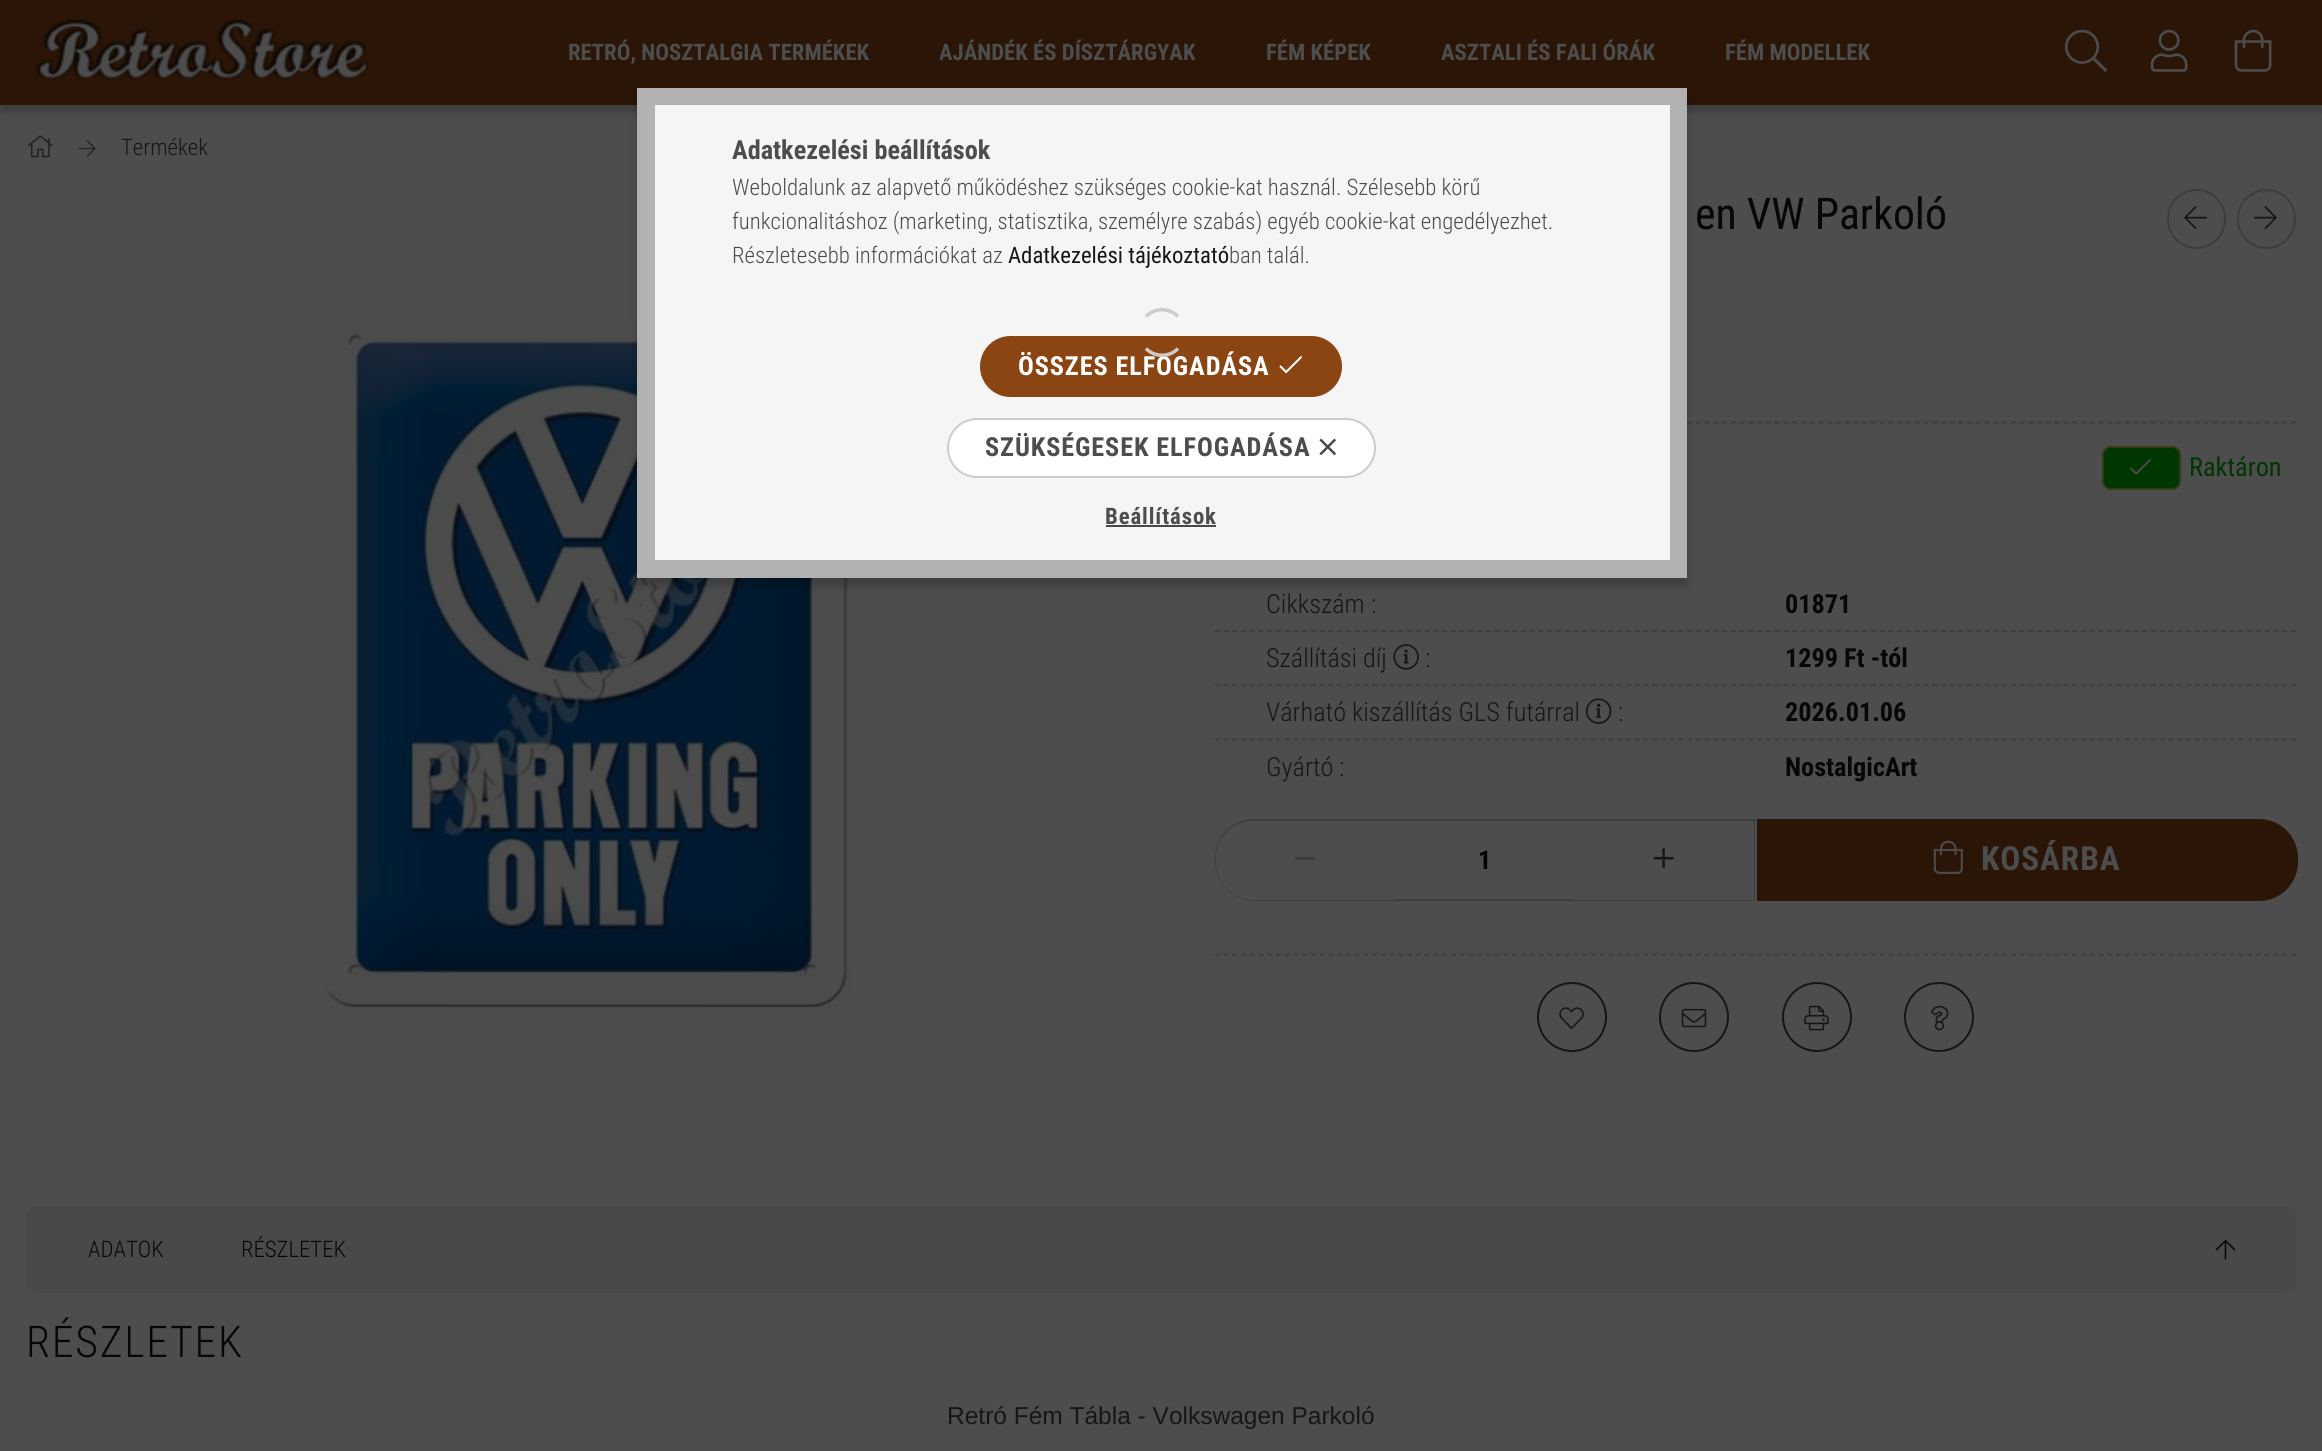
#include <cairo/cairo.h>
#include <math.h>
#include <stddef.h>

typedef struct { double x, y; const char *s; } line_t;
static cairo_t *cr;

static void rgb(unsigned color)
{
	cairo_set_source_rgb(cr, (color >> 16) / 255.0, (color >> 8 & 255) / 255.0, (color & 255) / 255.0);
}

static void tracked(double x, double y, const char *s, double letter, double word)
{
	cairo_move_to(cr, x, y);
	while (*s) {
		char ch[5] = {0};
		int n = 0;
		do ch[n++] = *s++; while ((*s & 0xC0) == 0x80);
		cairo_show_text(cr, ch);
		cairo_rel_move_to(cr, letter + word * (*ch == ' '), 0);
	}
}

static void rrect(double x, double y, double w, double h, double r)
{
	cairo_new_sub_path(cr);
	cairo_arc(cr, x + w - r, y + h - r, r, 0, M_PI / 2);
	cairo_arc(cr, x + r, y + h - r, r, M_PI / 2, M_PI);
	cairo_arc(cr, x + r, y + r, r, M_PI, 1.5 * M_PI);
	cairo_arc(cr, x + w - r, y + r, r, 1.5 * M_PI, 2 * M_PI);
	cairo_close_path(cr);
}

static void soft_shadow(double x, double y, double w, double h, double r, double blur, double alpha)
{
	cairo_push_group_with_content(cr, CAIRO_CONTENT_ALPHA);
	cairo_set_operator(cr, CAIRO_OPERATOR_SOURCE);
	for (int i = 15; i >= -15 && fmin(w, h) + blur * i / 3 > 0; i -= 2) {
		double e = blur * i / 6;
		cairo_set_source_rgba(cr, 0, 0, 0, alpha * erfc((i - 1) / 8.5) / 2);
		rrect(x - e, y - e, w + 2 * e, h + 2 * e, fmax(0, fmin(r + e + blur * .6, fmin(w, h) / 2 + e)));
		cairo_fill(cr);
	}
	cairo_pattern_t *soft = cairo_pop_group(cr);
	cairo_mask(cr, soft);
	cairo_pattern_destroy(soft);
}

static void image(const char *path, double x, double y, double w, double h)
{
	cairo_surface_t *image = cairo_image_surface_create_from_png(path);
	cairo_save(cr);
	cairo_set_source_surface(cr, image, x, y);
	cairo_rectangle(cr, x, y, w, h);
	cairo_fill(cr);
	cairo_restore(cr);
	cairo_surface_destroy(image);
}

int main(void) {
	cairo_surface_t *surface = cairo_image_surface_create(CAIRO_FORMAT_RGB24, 2322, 1451);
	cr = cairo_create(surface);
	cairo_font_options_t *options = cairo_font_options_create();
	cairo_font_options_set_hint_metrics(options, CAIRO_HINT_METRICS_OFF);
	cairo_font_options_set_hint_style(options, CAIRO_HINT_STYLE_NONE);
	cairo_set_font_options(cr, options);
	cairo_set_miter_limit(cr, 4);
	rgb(0x4d4d4d);
	cairo_paint(cr);
	rgb(0x000000);
	soft_shadow(0, 7, 2322, 105, 0, 3.5, 0.2);
	rgb(0x2a1506);
	cairo_rectangle(cr, 0, 0, 2322, 105);
	cairo_fill(cr);
	image("img/1.png", 34, 18, 336, 62);
	image("img/2.png", 2065, 29, 42, 43);
	image("img/3.png", 2150, 29, 38, 43);
	image("img/4.png", 2234, 29, 38, 43);
	image("img/5.png", 27, 135, 26, 23);
	image("img/6.png", 78, 140, 18, 17);
	image("img/7.png", 324, 321, 526, 690);
	cairo_new_path(cr);
	cairo_move_to(cr, 1214.5, 422.5);
	cairo_line_to(cr, 2296, 422.5);
	rgb(0x3d3d3d);
	cairo_set_line_width(cr, 1.8);
	cairo_set_dash(cr, (double[]){5.25, 3.5}, 2, 0);
	cairo_stroke(cr);
	rrect(2168, 190, 57, 58, 28.5);
	cairo_set_line_width(cr, 2);
	cairo_set_dash(cr, NULL, 0, 0);
	cairo_stroke(cr);
	image("img/8.png", 2184, 206, 23, 24);
	rrect(2238, 190, 57, 58, 28.5);
	cairo_stroke(cr);
	image("img/9.png", 2254, 206, 23, 24);
	rgb(0x003600);
	rrect(2103, 447, 77, 42, 8);
	cairo_fill_preserve(cr);
	rgb(0x333a14);
	cairo_stroke(cr);
	image("img/10.png", 2129, 458, 23, 17);
	cairo_new_path(cr);
	cairo_move_to(cr, 1214.5, 631);
	cairo_line_to(cr, 2296, 631);
	rgb(0x3d3d3d);
	cairo_set_line_width(cr, 1.8);
	cairo_set_dash(cr, (double[]){5.25, 3.5}, 2, 0);
	cairo_stroke(cr);
	image("img/11.png", 1393, 644, 26, 26);
	cairo_new_path(cr);
	cairo_move_to(cr, 1214.5, 685);
	cairo_line_to(cr, 2296, 685);
	cairo_stroke(cr);
	image("img/12.png", 1585, 698, 27, 26);
	cairo_new_path(cr);
	cairo_move_to(cr, 1214.5, 739.5);
	cairo_line_to(cr, 2296, 739.5);
	cairo_stroke(cr);
	cairo_new_path(cr);
	cairo_move_to(cr, 1254, 820);
	cairo_line_to(cr, 1754, 820);
	cairo_line_to(cr, 1754, 900);
	cairo_line_to(cr, 1254, 900);
	cairo_curve_to(cr, 1233, 900, 1216, 883, 1216, 862);
	cairo_line_to(cr, 1216, 858);
	cairo_curve_to(cr, 1216, 837, 1233, 820, 1254, 820);
	cairo_close_path(cr);
	cairo_set_line_width(cr, 2);
	cairo_set_dash(cr, NULL, 0, 0);
	cairo_stroke(cr);
	rgb(0x4d4d4d);
	cairo_new_path(cr);
	cairo_move_to(cr, 1253, 821);
	cairo_line_to(cr, 1395, 821);
	cairo_line_to(cr, 1395, 900);
	cairo_line_to(cr, 1253, 900);
	cairo_curve_to(cr, 1232.5, 900, 1216, 883.5, 1216, 863);
	cairo_line_to(cr, 1216, 858);
	cairo_curve_to(cr, 1216, 837.5, 1232.5, 821, 1253, 821);
	cairo_close_path(cr);
	cairo_fill(cr);
	rgb(0x3d3d3d);
	cairo_rectangle(cr, 1295, 857, 20, 3);
	cairo_fill(cr);
	rgb(0x4d4d4d);
	cairo_rectangle(cr, 1573, 821, 181, 79);
	cairo_fill(cr);
	image("img/13.png", 1653, 848, 21, 20);
	rgb(0x2a1506);
	cairo_new_path(cr);
	cairo_move_to(cr, 1758, 820);
	cairo_line_to(cr, 2259, 820);
	cairo_curve_to(cr, 2280, 820, 2297, 837, 2297, 858);
	cairo_line_to(cr, 2297, 862);
	cairo_curve_to(cr, 2297, 883, 2280, 900, 2259, 900);
	cairo_line_to(cr, 1758, 900);
	cairo_close_path(cr);
	cairo_fill_preserve(cr);
	cairo_stroke(cr);
	image("img/14.png", 1933, 840, 30, 34);
	cairo_new_path(cr);
	cairo_move_to(cr, 1214.5, 954.5);
	cairo_line_to(cr, 2296, 954.5);
	rgb(0x3d3d3d);
	cairo_set_line_width(cr, 1.8);
	cairo_set_dash(cr, (double[]){5.25, 3.5}, 2, 0);
	cairo_stroke(cr);
	cairo_arc(cr, 1572, 1017, 34, 0, 2 * M_PI);
	rgb(0x161616);
	cairo_set_line_width(cr, 2);
	cairo_set_dash(cr, NULL, 0, 0);
	cairo_stroke(cr);
	image("img/15.png", 1559, 1007, 25, 22);
	cairo_arc(cr, 1694, 1017, 34, 0, 2 * M_PI);
	cairo_stroke(cr);
	image("img/16.png", 1681, 1008, 26, 20);
	cairo_arc(cr, 1817, 1017, 34, 0, 2 * M_PI);
	cairo_stroke(cr);
	image("img/17.png", 1804, 1005, 25, 26);
	cairo_arc(cr, 1939, 1017, 34, 0, 2 * M_PI);
	cairo_stroke(cr);
	image("img/18.png", 1931, 1005, 18, 26);
	rgb(0x494949);
	rrect(26, 1206, 2270, 87, 9);
	cairo_fill(cr);
	image("img/19.png", 2215, 1239, 21, 21);
	rgb(0x000000);
	soft_shadow(637, 96, 1050, 490, 0, 4.5, 0.2);
	cairo_rectangle(cr, 646, 97, 1032, 472);
	rgb(0xb2b2b2);
	cairo_set_line_width(cr, 18);
	cairo_stroke(cr);
	rgb(0xf5f5f5);
	cairo_rectangle(cr, 655, 105, 1015, 455);
	cairo_fill(cr);
	rgb(0x8b4513);
	rrect(981, 337, 360, 59, 29.5);
	cairo_fill_preserve(cr);
	cairo_set_line_width(cr, 2);
	cairo_stroke(cr);
	image("img/20.png", 1279, 356, 24, 18);
	rgb(0xffffff);
	rrect(948, 419, 427, 58, 29);
	cairo_fill_preserve(cr);
	rgb(0xcccccc);
	cairo_stroke(cr);
	image("img/21.png", 1319, 438, 17, 18);
	rgb(0x484848);
	cairo_rectangle(cr, 1106, 525, 110, 2);
	cairo_fill(cr);
	cairo_select_font_face(cr, "Roboto Condensed", CAIRO_FONT_SLANT_NORMAL, CAIRO_FONT_WEIGHT_BOLD);
	cairo_set_font_size(cr, 22.75);
	rgb(0x4d4d4d);
	cairo_move_to(cr, 568, 60);
	cairo_show_text(cr, "RETRÓ, NOSZTALGIA TERMÉKEK");
	cairo_save(cr);
	cairo_rectangle(cr, 940, 39, 255, 28);
	cairo_clip(cr);
	cairo_move_to(cr, 939, 60);
	cairo_show_text(cr, "AJÁNDÉK ÉS DÍSZTÁRGYAK");
	cairo_restore(cr);
	{
		static const line_t items[] = {
			{1266, 60, "FÉM KÉPEK"},
			{1441, 60, "ASZTALI ÉS FALI ÓRÁK"},
			{1725, 60, "FÉM MODELLEK"},
		};
		for (size_t i = 0; i < sizeof items / sizeof *items; i++) {
			cairo_move_to(cr, items[i].x, items[i].y);
			cairo_show_text(cr, items[i].s);
		}
	}
	cairo_select_font_face(cr, "Roboto Condensed Light", CAIRO_FONT_SLANT_NORMAL, CAIRO_FONT_WEIGHT_NORMAL);
	rgb(0x161616);
	cairo_move_to(cr, 121, 155);
	cairo_show_text(cr, "Termékek");
	cairo_select_font_face(cr, "Roboto Condensed", CAIRO_FONT_SLANT_NORMAL, CAIRO_FONT_WEIGHT_NORMAL);
	cairo_set_font_size(cr, 43.75);
	rgb(0x070707);
	cairo_move_to(cr, 1695, 229);
	cairo_show_text(cr, "en VW Parkoló");
	cairo_set_font_size(cr, 26.25);
	rgb(0x003600);
	cairo_move_to(cr, 2189, 476);
	cairo_show_text(cr, "Raktáron");
	cairo_select_font_face(cr, "Roboto Condensed Light", CAIRO_FONT_SLANT_NORMAL, CAIRO_FONT_WEIGHT_NORMAL);
	rgb(0x161616);
	cairo_move_to(cr, 1266, 613);
	cairo_show_text(cr, "Cikkszám");
	cairo_move_to(cr, 1371, 613);
	cairo_show_text(cr, ":");
	cairo_select_font_face(cr, "Roboto Condensed", CAIRO_FONT_SLANT_NORMAL, CAIRO_FONT_WEIGHT_BOLD);
	rgb(0x070707);
	cairo_move_to(cr, 1785, 613);
	cairo_show_text(cr, "01871");
	cairo_select_font_face(cr, "Roboto Condensed Light", CAIRO_FONT_SLANT_NORMAL, CAIRO_FONT_WEIGHT_NORMAL);
	rgb(0x161616);
	cairo_move_to(cr, 1266, 667);
	cairo_show_text(cr, "Szállítási díj");
	cairo_move_to(cr, 1425, 667);
	cairo_show_text(cr, ":");
	cairo_select_font_face(cr, "Roboto Condensed", CAIRO_FONT_SLANT_NORMAL, CAIRO_FONT_WEIGHT_BOLD);
	rgb(0x070707);
	cairo_move_to(cr, 1785, 667);
	cairo_show_text(cr, "1299 Ft -tól");
	cairo_select_font_face(cr, "Roboto Condensed Light", CAIRO_FONT_SLANT_NORMAL, CAIRO_FONT_WEIGHT_NORMAL);
	rgb(0x161616);
	cairo_move_to(cr, 1266, 721);
	cairo_show_text(cr, "Várható kiszállítás GLS futárral");
	cairo_move_to(cr, 1618, 721);
	cairo_show_text(cr, ":");
	cairo_select_font_face(cr, "Roboto Condensed", CAIRO_FONT_SLANT_NORMAL, CAIRO_FONT_WEIGHT_BOLD);
	rgb(0x070707);
	cairo_move_to(cr, 1785, 721);
	cairo_show_text(cr, "2026.01.06");
	cairo_select_font_face(cr, "Roboto Condensed Light", CAIRO_FONT_SLANT_NORMAL, CAIRO_FONT_WEIGHT_NORMAL);
	rgb(0x161616);
	cairo_move_to(cr, 1266, 776);
	cairo_show_text(cr, "Gyártó");
	cairo_move_to(cr, 1339, 776);
	cairo_show_text(cr, ":");
	cairo_select_font_face(cr, "Roboto Condensed", CAIRO_FONT_SLANT_NORMAL, CAIRO_FONT_WEIGHT_BOLD);
	rgb(0x070707);
	cairo_move_to(cr, 1785, 776);
	cairo_show_text(cr, "NostalgicArt");
	rgb(0x000000);
	cairo_move_to(cr, 1478, 869);
	cairo_show_text(cr, "1");
	cairo_set_font_size(cr, 33.25);
	rgb(0x4d4d4d);
	tracked(1981, 870, "KOSÁRBA", 0.9, 0);
	cairo_select_font_face(cr, "Roboto Condensed Light", CAIRO_FONT_SLANT_NORMAL, CAIRO_FONT_WEIGHT_NORMAL);
	cairo_set_font_size(cr, 22.75);
	rgb(0x070707);
	cairo_move_to(cr, 88, 1257);
	cairo_show_text(cr, "ADATOK");
	cairo_move_to(cr, 241, 1257);
	cairo_show_text(cr, "RÉSZLETEK");
	cairo_set_font_size(cr, 43.75);
	tracked(26, 1357, "RÉSZLETEK", 1.75, 0);
	cairo_select_font_face(cr, "Liberation Sans", CAIRO_FONT_SLANT_NORMAL, CAIRO_FONT_WEIGHT_NORMAL);
	cairo_set_font_size(cr, 24.5);
	rgb(0x161616);
	cairo_move_to(cr, 947, 1424);
	cairo_show_text(cr, "Retró Fém Tábla - Volkswagen Parkoló");
	cairo_select_font_face(cr, "Roboto Condensed", CAIRO_FONT_SLANT_NORMAL, CAIRO_FONT_WEIGHT_BOLD);
	cairo_set_font_size(cr, 26.25);
	rgb(0x4d4d4d);
	cairo_move_to(cr, 732, 159);
	cairo_show_text(cr, "Adatkezelési beállítások");
	cairo_select_font_face(cr, "Roboto Condensed Light", CAIRO_FONT_SLANT_NORMAL, CAIRO_FONT_WEIGHT_NORMAL);
	cairo_set_font_size(cr, 22.75);
	{
		static const line_t items[] = {
			{732, 195, "Weboldalunk az alapvető működéshez szükséges cookie-kat használ. Szélesebb körű"},
			{732, 229, "funkcionalitáshoz (marketing, statisztika, személyre szabás) egyéb cookie-kat engedélyezhet."},
			{732, 263, "Részletesebb információkat az"},
		};
		for (size_t i = 0; i < sizeof items / sizeof *items; i++) {
			cairo_move_to(cr, items[i].x, items[i].y);
			cairo_show_text(cr, items[i].s);
		}
	}
	cairo_select_font_face(cr, "Roboto Condensed", CAIRO_FONT_SLANT_NORMAL, CAIRO_FONT_WEIGHT_NORMAL);
	rgb(0x161616);
	cairo_move_to(cr, 1008, 263);
	cairo_show_text(cr, "Adatkezelési tájékoztató");
	cairo_select_font_face(cr, "Roboto Condensed Light", CAIRO_FONT_SLANT_NORMAL, CAIRO_FONT_WEIGHT_NORMAL);
	rgb(0x4d4d4d);
	cairo_move_to(cr, 1229, 263);
	cairo_show_text(cr, "ban talál.");
	cairo_select_font_face(cr, "Roboto Condensed", CAIRO_FONT_SLANT_NORMAL, CAIRO_FONT_WEIGHT_BOLD);
	cairo_set_font_size(cr, 26.25);
	rgb(0xffffff);
	tracked(1018, 375, "ÖSSZES ELFOGADÁSA", 0.9, 0);
	rgb(0x4d4d4d);
	tracked(985, 456, "SZÜKSÉGESEK ELFOGADÁSA", 0.9, 0);
	cairo_set_font_size(cr, 22.75);
	tracked(1105, 524, "Beállítások", 0.9, 0);
	cairo_new_path(cr);
	cairo_move_to(cr, 1146, 316.5);
	cairo_curve_to(cr, 1154.5, 307.5, 1169.5, 307.5, 1178, 316.5);
	cairo_move_to(cr, 1178, 348.5);
	cairo_curve_to(cr, 1169.5, 357.5, 1154.5, 357.5, 1146, 348.5);
	rgb(0xcccccc);
	cairo_set_line_width(cr, 3.5);
	cairo_stroke(cr);
	cairo_surface_write_to_png(surface, "page.png");
	cairo_font_options_destroy(options);
	cairo_destroy(cr);
	cairo_surface_destroy(surface);
	return 0;
}
